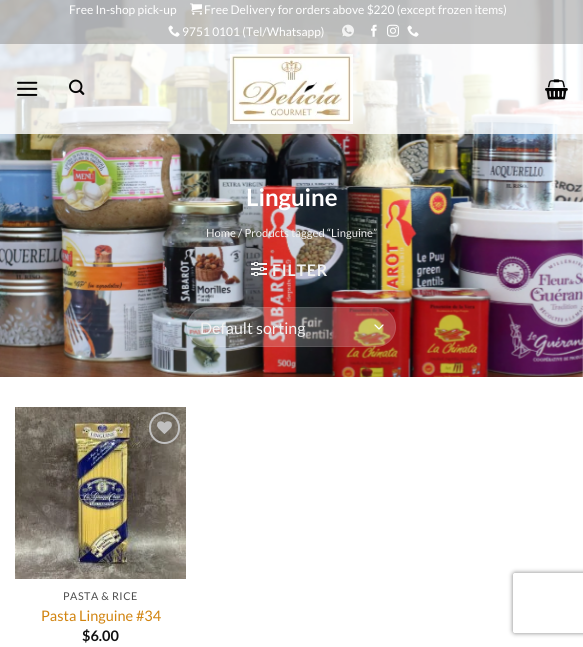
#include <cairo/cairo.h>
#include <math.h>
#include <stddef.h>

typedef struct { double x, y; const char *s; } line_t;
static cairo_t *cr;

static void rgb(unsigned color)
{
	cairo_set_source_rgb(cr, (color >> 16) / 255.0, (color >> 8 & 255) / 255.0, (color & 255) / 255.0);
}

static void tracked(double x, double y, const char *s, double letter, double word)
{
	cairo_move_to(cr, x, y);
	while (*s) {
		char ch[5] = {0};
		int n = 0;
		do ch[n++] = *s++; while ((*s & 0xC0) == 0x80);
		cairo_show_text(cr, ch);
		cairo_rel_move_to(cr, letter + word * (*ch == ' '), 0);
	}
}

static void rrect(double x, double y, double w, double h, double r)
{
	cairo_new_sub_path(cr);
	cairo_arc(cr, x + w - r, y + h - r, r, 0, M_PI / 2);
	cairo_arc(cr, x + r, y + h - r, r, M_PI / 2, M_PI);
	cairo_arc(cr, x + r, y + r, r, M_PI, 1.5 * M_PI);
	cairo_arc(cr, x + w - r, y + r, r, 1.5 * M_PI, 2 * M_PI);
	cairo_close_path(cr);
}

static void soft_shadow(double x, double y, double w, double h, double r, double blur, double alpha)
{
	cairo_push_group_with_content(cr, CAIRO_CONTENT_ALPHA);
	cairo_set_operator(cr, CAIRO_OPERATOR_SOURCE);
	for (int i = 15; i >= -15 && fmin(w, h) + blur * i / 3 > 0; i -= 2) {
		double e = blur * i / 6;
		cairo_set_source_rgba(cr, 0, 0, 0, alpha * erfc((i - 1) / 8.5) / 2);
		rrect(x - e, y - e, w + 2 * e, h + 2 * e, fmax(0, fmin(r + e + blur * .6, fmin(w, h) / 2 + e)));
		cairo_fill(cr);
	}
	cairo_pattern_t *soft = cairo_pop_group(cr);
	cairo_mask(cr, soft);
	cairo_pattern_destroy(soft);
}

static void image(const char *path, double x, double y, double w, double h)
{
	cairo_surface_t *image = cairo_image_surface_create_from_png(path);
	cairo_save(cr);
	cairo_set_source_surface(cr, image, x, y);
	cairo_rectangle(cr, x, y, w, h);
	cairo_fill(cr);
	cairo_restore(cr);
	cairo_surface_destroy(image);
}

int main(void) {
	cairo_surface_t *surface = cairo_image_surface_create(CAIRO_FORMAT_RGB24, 583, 647);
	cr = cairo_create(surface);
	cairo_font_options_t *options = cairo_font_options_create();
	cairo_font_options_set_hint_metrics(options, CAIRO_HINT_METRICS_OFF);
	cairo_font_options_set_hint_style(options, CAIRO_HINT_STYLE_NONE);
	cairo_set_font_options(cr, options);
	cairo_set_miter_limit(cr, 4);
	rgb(0xffffff);
	cairo_paint(cr);
	image("img/11.png", 0, 0, 583, 377);
	cairo_set_source_rgba(cr, 1, 1, 1, 0.8);
	cairo_rectangle(cr, 0, 0, 583, 134);
	cairo_fill(cr);
	cairo_set_source_rgba(cr, 0.467, 0.467, 0.467, 0.42);
	cairo_rectangle(cr, 0, 0, 583, 44);
	cairo_fill(cr);
	image("img/1.png", 190, 3, 12, 12);
	image("img/2.png", 168, 25, 12, 12);
	image("img/3.png", 342, 24, 12, 13);
	image("img/4.png", 371, 24, 6, 13);
	image("img/5.png", 387, 24, 12, 13);
	image("img/6.png", 407, 25, 12, 12);
	image("img/7.png", 17, 81, 21, 15);
	cairo_set_source_rgba(cr, 1, 1, 1, 0.1);
	cairo_rectangle(cr, 54, 74, 1, 21);
	cairo_fill(cr);
	image("img/8.png", 69, 79, 16, 16);
	image("img/9.png", 230, 54, 123, 70);
	image("img/10.png", 545, 79, 23, 21);
	image("img/12.png", 251, 262, 16, 14);
	cairo_set_source_rgba(cr, 1, 1, 1, 0.2);
	rrect(187, 307, 209, 40, 20);
	cairo_fill(cr);
	cairo_new_path(cr);
	cairo_move_to(cr, 375, 325);
	cairo_line_to(cr, 379, 329);
	cairo_line_to(cr, 383, 325);
	rgb(0xffffff);
	cairo_set_line_width(cr, 1.3);
	cairo_set_line_cap(cr, CAIRO_LINE_CAP_ROUND);
	cairo_set_line_join(cr, CAIRO_LINE_JOIN_ROUND);
	cairo_stroke(cr);
	rrect(187.5, 307.5, 208, 39, 19.5);
	cairo_set_source_rgba(cr, 1, 1, 1, 0.09);
	cairo_set_line_width(cr, 1);
	cairo_set_line_cap(cr, CAIRO_LINE_CAP_BUTT);
	cairo_set_line_join(cr, CAIRO_LINE_JOIN_MITER);
	cairo_stroke(cr);
	image("img/13.png", 15, 407, 171, 172);
	rrect(150, 413, 29, 30, 14.5);
	rgb(0xc0c0c0);
	cairo_set_line_width(cr, 2);
	cairo_stroke(cr);
	image("img/14.png", 157, 421, 15, 13);
	cairo_save(cr);
	cairo_set_fill_rule(cr, CAIRO_FILL_RULE_EVEN_ODD);
	cairo_new_path(cr);
	cairo_move_to(cr, 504, 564);
	cairo_line_to(cr, 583, 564);
	cairo_line_to(cr, 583, 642);
	cairo_line_to(cr, 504, 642);
	cairo_close_path(cr);
	cairo_move_to(cr, 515, 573);
	cairo_line_to(cr, 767, 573);
	cairo_curve_to(cr, 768, 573, 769, 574, 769, 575);
	cairo_line_to(cr, 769, 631);
	cairo_curve_to(cr, 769, 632, 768, 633, 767, 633);
	cairo_line_to(cr, 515, 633);
	cairo_curve_to(cr, 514, 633, 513, 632, 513, 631);
	cairo_line_to(cr, 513, 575);
	cairo_curve_to(cr, 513, 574, 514, 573, 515, 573);
	cairo_close_path(cr);
	cairo_clip(cr);
	rgb(0x808080);
	soft_shadow(513, 573, 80, 60, 2, 2.5, 1);
	cairo_restore(cr);
	cairo_select_font_face(cr, "Lato", CAIRO_FONT_SLANT_NORMAL, CAIRO_FONT_WEIGHT_NORMAL);
	cairo_set_font_size(cr, 12);
	rgb(0xffffff);
	{
		static const line_t items[] = {
			{69, 14, "Free In-shop pick-up"},
			{204, 14, "Free Delivery for orders above $220 (except frozen items)"},
			{182, 36, "9751 0101 (Tel/Whatsapp)"},
		};
		for (size_t i = 0; i < sizeof items / sizeof *items; i++) {
			cairo_move_to(cr, items[i].x, items[i].y);
			cairo_show_text(cr, items[i].s);
		}
	}
	cairo_select_font_face(cr, "Lato", CAIRO_FONT_SLANT_NORMAL, CAIRO_FONT_WEIGHT_BOLD);
	cairo_set_font_size(cr, 24);
	cairo_move_to(cr, 246, 206);
	cairo_show_text(cr, "Linguine");
	cairo_select_font_face(cr, "Lato", CAIRO_FONT_SLANT_NORMAL, CAIRO_FONT_WEIGHT_NORMAL);
	cairo_set_font_size(cr, 11.25);
	rgb(0xf1f1f1);
	cairo_move_to(cr, 206, 237);
	cairo_show_text(cr, "Home / Products tagged “Linguine”");
	cairo_select_font_face(cr, "Lato", CAIRO_FONT_SLANT_NORMAL, CAIRO_FONT_WEIGHT_BOLD);
	cairo_set_font_size(cr, 16);
	tracked(272, 276, "FILTER", 0.75, 0);
	cairo_select_font_face(cr, "Lato", CAIRO_FONT_SLANT_NORMAL, CAIRO_FONT_WEIGHT_NORMAL);
	cairo_move_to(cr, 200, 334);
	cairo_show_text(cr, "Default sorting");
	cairo_set_font_size(cr, 10.75);
	rgb(0x4d4d4d);
	tracked(63, 600, "PASTA & RICE", 0.5, 0);
	cairo_set_font_size(cr, 14.5);
	rgb(0xd1830e);
	cairo_move_to(cr, 41, 621);
	cairo_show_text(cr, "Pasta Linguine #34");
	cairo_select_font_face(cr, "Lato", CAIRO_FONT_SLANT_NORMAL, CAIRO_FONT_WEIGHT_BOLD);
	rgb(0x111111);
	cairo_move_to(cr, 82, 641);
	cairo_show_text(cr, "$6.00");
	cairo_surface_write_to_png(surface, "page.png");
	cairo_font_options_destroy(options);
	cairo_destroy(cr);
	cairo_surface_destroy(surface);
	return 0;
}
